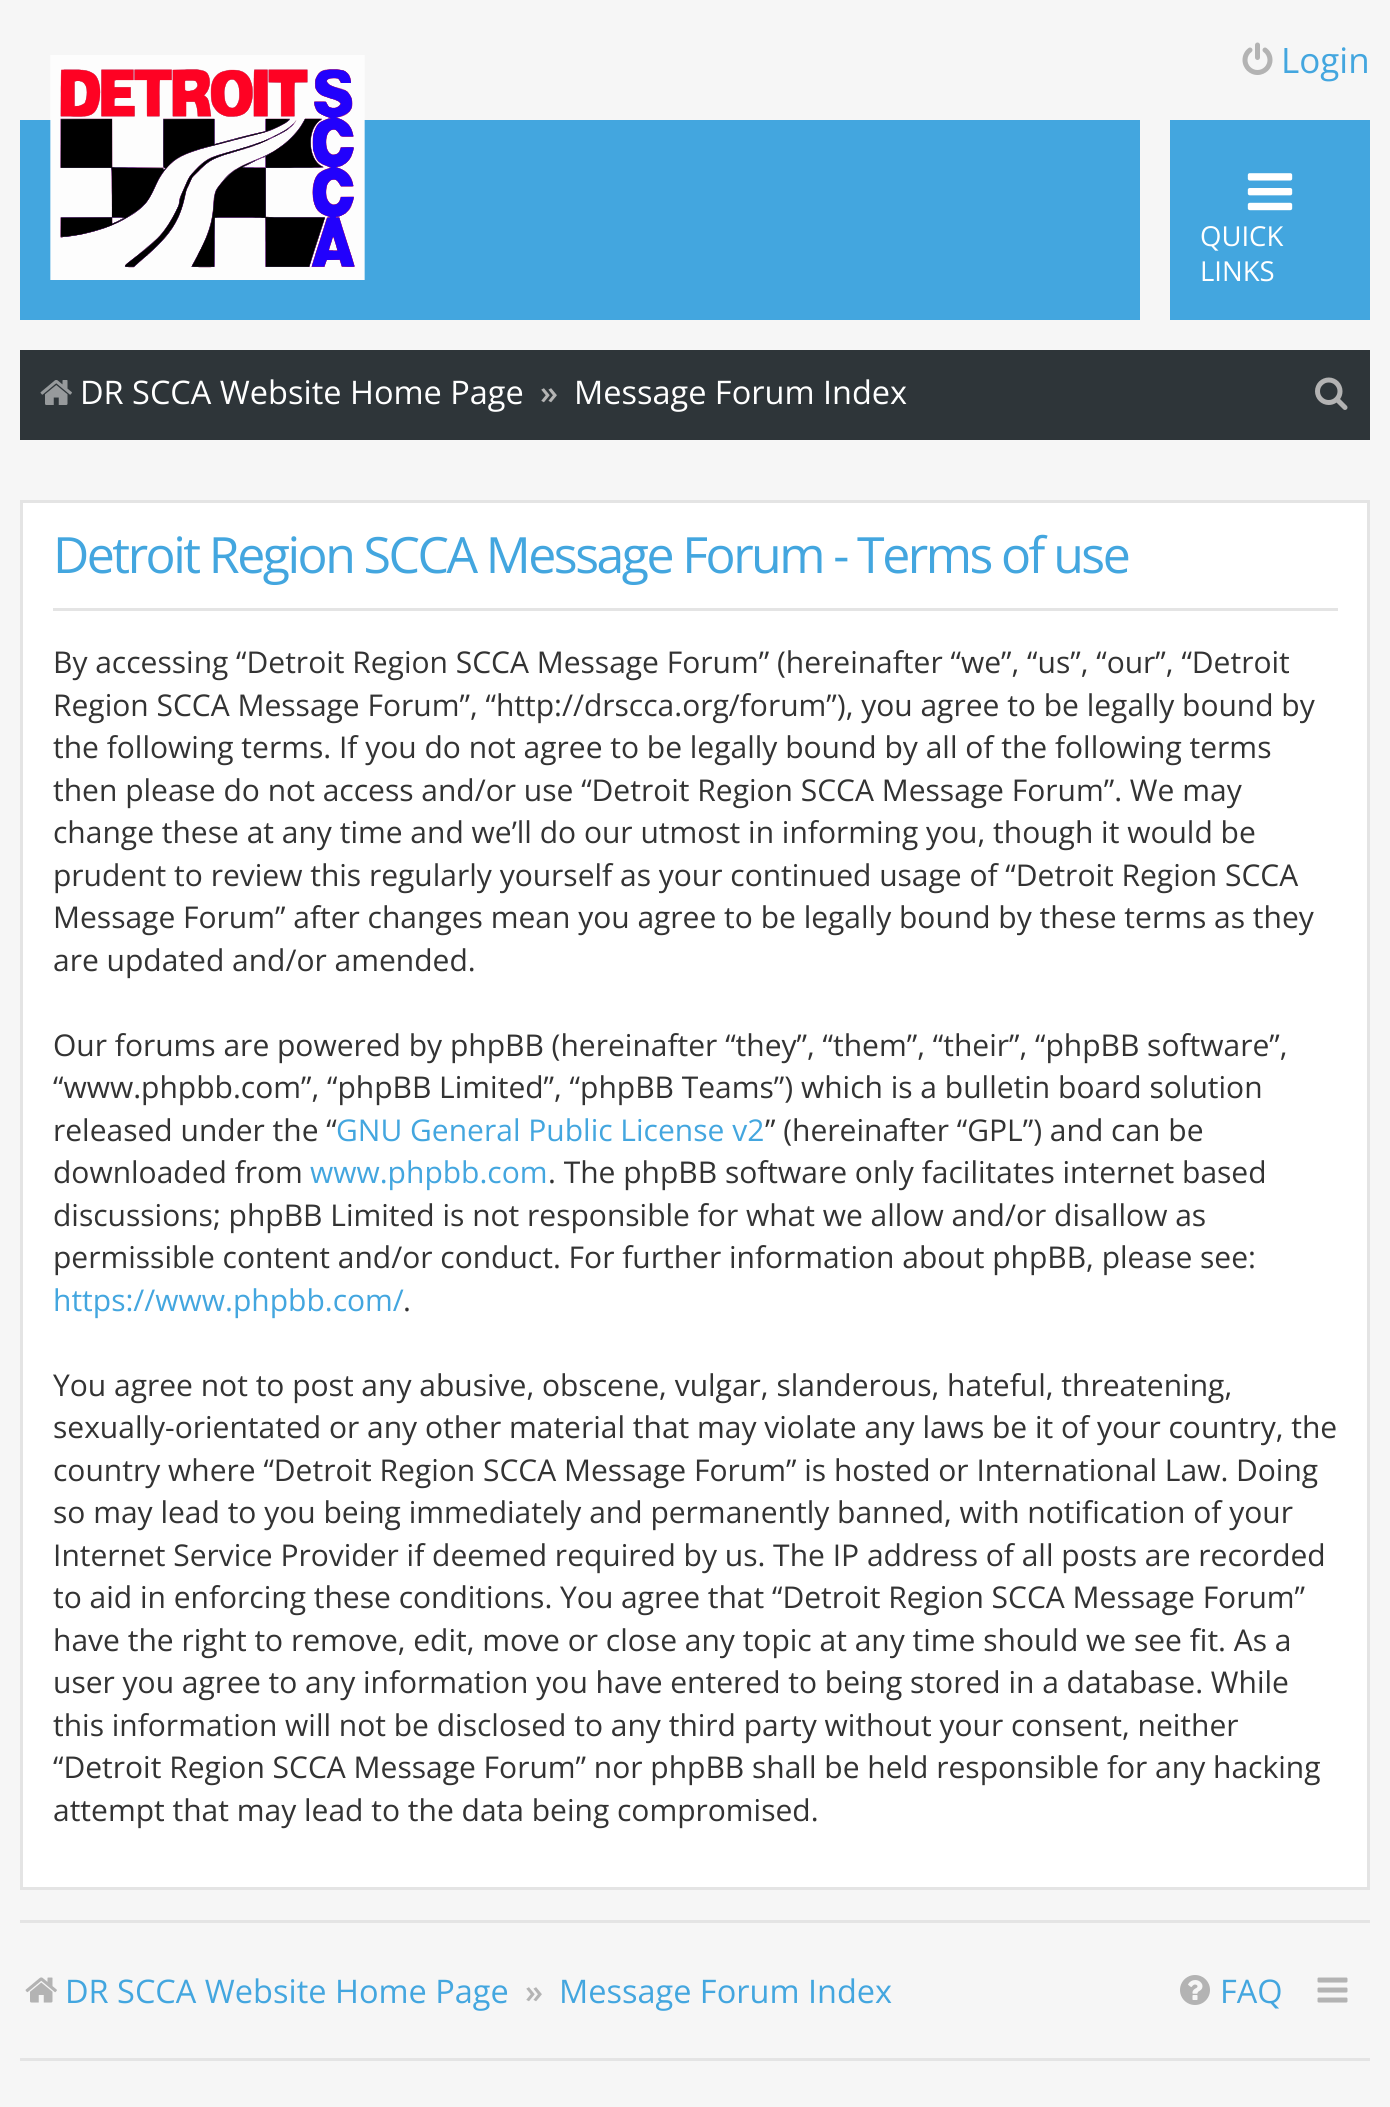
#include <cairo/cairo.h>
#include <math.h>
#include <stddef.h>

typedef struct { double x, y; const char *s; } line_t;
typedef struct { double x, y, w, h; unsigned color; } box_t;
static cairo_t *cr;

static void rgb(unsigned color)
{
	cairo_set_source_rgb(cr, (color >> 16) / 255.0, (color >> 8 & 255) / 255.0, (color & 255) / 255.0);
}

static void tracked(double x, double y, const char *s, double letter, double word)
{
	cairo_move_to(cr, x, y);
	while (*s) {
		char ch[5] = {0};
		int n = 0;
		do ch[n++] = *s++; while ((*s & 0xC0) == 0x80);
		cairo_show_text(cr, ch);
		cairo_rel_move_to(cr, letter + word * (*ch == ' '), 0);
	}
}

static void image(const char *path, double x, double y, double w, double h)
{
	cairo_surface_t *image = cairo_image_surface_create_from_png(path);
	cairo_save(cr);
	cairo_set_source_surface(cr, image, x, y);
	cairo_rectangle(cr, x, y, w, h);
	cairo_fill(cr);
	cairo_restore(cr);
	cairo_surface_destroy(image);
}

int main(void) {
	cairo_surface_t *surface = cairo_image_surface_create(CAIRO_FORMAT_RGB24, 1390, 2107);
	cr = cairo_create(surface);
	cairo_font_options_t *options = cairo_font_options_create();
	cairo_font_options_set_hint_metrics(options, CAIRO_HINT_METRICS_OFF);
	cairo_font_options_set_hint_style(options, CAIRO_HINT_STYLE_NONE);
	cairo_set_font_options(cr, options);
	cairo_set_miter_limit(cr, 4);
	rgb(0xf6f6f6);
	cairo_paint(cr);
	rgb(0x43a6df);
	cairo_rectangle(cr, 20, 120, 1350, 200);
	cairo_fill(cr);
	image("img/1.png", 50, 55, 315, 225);
	image("img/2.png", 1242, 42, 31, 33);
	rgb(0xf6f6f6);
	cairo_rectangle(cr, 1140, 120, 30, 200);
	cairo_fill(cr);
	image("img/3.png", 1247, 173, 46, 38);
	rgb(0x2e3539);
	cairo_rectangle(cr, 20, 350, 1350, 90);
	cairo_fill(cr);
	image("img/4.png", 40, 380, 32, 25);
	image("img/5.png", 1315, 377, 33, 33);
	rgb(0xffffff);
	cairo_rectangle(cr, 21.5, 501.5, 1347, 1387);
	cairo_fill_preserve(cr);
	rgb(0xe4e4e4);
	cairo_set_line_width(cr, 3);
	cairo_stroke(cr);
	{
		static const box_t items[] = {
			{53, 608, 1285, 3, 0xe4e4e4},
			{20, 1920, 1350, 3, 0xe4e4e4},
			{20, 2058, 1350, 3, 0xe4e4e4},
		};
		for (size_t i = 0; i < sizeof items / sizeof *items; i++) {
			rgb(items[i].color);
			cairo_rectangle(cr, items[i].x, items[i].y, items[i].w, items[i].h);
			cairo_fill(cr);
		}
	}
	image("img/6.png", 25, 1977, 32, 26);
	image("img/7.png", 1180, 1975, 30, 30);
	image("img/8.png", 1317, 1977, 31, 26);
	cairo_select_font_face(cr, "Open Sans", CAIRO_FONT_SLANT_NORMAL, CAIRO_FONT_WEIGHT_NORMAL);
	cairo_set_font_size(cr, 35);
	rgb(0x43a6df);
	cairo_move_to(cr, 1281, 73);
	cairo_show_text(cr, "Login");
	cairo_set_font_size(cr, 27.5);
	rgb(0xffffff);
	cairo_move_to(cr, 1200, 246);
	cairo_show_text(cr, "QUICK");
	cairo_move_to(cr, 1200, 281);
	cairo_show_text(cr, "LINKS");
	cairo_set_font_size(cr, 32.5);
	cairo_move_to(cr, 80, 404);
	cairo_show_text(cr, "DR SCCA Website Home Page");
	cairo_select_font_face(cr, "Open Sans SemiBold", CAIRO_FONT_SLANT_NORMAL, CAIRO_FONT_WEIGHT_NORMAL);
	rgb(0xb4b4b4);
	cairo_move_to(cr, 540, 404);
	cairo_show_text(cr, "»");
	cairo_select_font_face(cr, "Open Sans", CAIRO_FONT_SLANT_NORMAL, CAIRO_FONT_WEIGHT_NORMAL);
	rgb(0xffffff);
	cairo_move_to(cr, 574, 404);
	cairo_show_text(cr, "Message Forum Index");
	cairo_set_font_size(cr, 50);
	rgb(0x43a6df);
	tracked(53, 573, "Detroit Region SCCA Message Forum - Terms of use", -2.5, -0.25);
	cairo_set_font_size(cr, 30);
	rgb(0x333333);
	{
		static const line_t items[] = {
			{53, 673, "By accessing “Detroit Region SCCA Message Forum” (hereinafter “we”, “us”, “our”, “Detroit"},
			{53, 716, "Region SCCA Message Forum”, “http://drscca.org/forum”), you agree to be legally bound by"},
			{53, 758, "the following terms. If you do not agree to be legally bound by all of the following terms"},
			{53, 801, "then please do not access and/or use “Detroit Region SCCA Message Forum”. We may"},
			{53, 843, "change these at any time and we’ll do our utmost in informing you, though it would be"},
			{53, 886, "prudent to review this regularly yourself as your continued usage of “Detroit Region SCCA"},
			{53, 928, "Message Forum” after changes mean you agree to be legally bound by these terms as they"},
			{53, 971, "are updated and/or amended."},
			{53, 1056, "Our forums are powered by phpBB (hereinafter “they”, “them”, “their”, “phpBB software”,"},
			{53, 1098, "“www.phpbb.com”, “phpBB Limited”, “phpBB Teams”) which is a bulletin board solution"},
			{53, 1141, "released under the “"},
		};
		for (size_t i = 0; i < sizeof items / sizeof *items; i++) {
			cairo_move_to(cr, items[i].x, items[i].y);
			cairo_show_text(cr, items[i].s);
		}
	}
	rgb(0x43a6df);
	cairo_move_to(cr, 336, 1141);
	cairo_show_text(cr, "GNU General Public License v2");
	rgb(0x333333);
	cairo_move_to(cr, 765, 1141);
	cairo_show_text(cr, "” (hereinafter “GPL”) and can be");
	cairo_move_to(cr, 53, 1183);
	cairo_show_text(cr, "downloaded from");
	rgb(0x43a6df);
	cairo_move_to(cr, 310, 1183);
	cairo_show_text(cr, "www.phpbb.com");
	rgb(0x333333);
	{
		static const line_t items[] = {
			{548, 1183, ". The phpBB software only facilitates internet based"},
			{53, 1226, "discussions; phpBB Limited is not responsible for what we allow and/or disallow as"},
			{53, 1268, "permissible content and/or conduct. For further information about phpBB, please see:"},
		};
		for (size_t i = 0; i < sizeof items / sizeof *items; i++) {
			cairo_move_to(cr, items[i].x, items[i].y);
			cairo_show_text(cr, items[i].s);
		}
	}
	rgb(0x43a6df);
	cairo_move_to(cr, 53, 1311);
	cairo_show_text(cr, "https://www.phpbb.com/");
	rgb(0x333333);
	{
		static const line_t items[] = {
			{403, 1311, "."},
			{53, 1396, "You agree not to post any abusive, obscene, vulgar, slanderous, hateful, threatening,"},
			{53, 1438, "sexually-orientated or any other material that may violate any laws be it of your country, the"},
			{53, 1481, "country where “Detroit Region SCCA Message Forum” is hosted or International Law. Doing"},
			{53, 1523, "so may lead to you being immediately and permanently banned, with notification of your"},
			{53, 1566, "Internet Service Provider if deemed required by us. The IP address of all posts are recorded"},
			{53, 1608, "to aid in enforcing these conditions. You agree that “Detroit Region SCCA Message Forum”"},
			{53, 1651, "have the right to remove, edit, move or close any topic at any time should we see fit. As a"},
			{53, 1693, "user you agree to any information you have entered to being stored in a database. While"},
			{53, 1736, "this information will not be disclosed to any third party without your consent, neither"},
			{53, 1778, "“Detroit Region SCCA Message Forum” nor phpBB shall be held responsible for any hacking"},
			{53, 1821, "attempt that may lead to the data being compromised."},
		};
		for (size_t i = 0; i < sizeof items / sizeof *items; i++) {
			cairo_move_to(cr, items[i].x, items[i].y);
			cairo_show_text(cr, items[i].s);
		}
	}
	cairo_set_font_size(cr, 32.5);
	rgb(0x43a6df);
	cairo_move_to(cr, 65, 2003);
	cairo_show_text(cr, "DR SCCA Website Home Page");
	cairo_select_font_face(cr, "Open Sans SemiBold", CAIRO_FONT_SLANT_NORMAL, CAIRO_FONT_WEIGHT_NORMAL);
	rgb(0xb4b4b4);
	cairo_move_to(cr, 525, 2003);
	cairo_show_text(cr, "»");
	cairo_select_font_face(cr, "Open Sans", CAIRO_FONT_SLANT_NORMAL, CAIRO_FONT_WEIGHT_NORMAL);
	rgb(0x43a6df);
	cairo_move_to(cr, 559, 2003);
	cairo_show_text(cr, "Message Forum Index");
	cairo_move_to(cr, 1220, 2003);
	cairo_show_text(cr, "FAQ");
	cairo_surface_write_to_png(surface, "page.png");
	cairo_font_options_destroy(options);
	cairo_destroy(cr);
	cairo_surface_destroy(surface);
	return 0;
}
